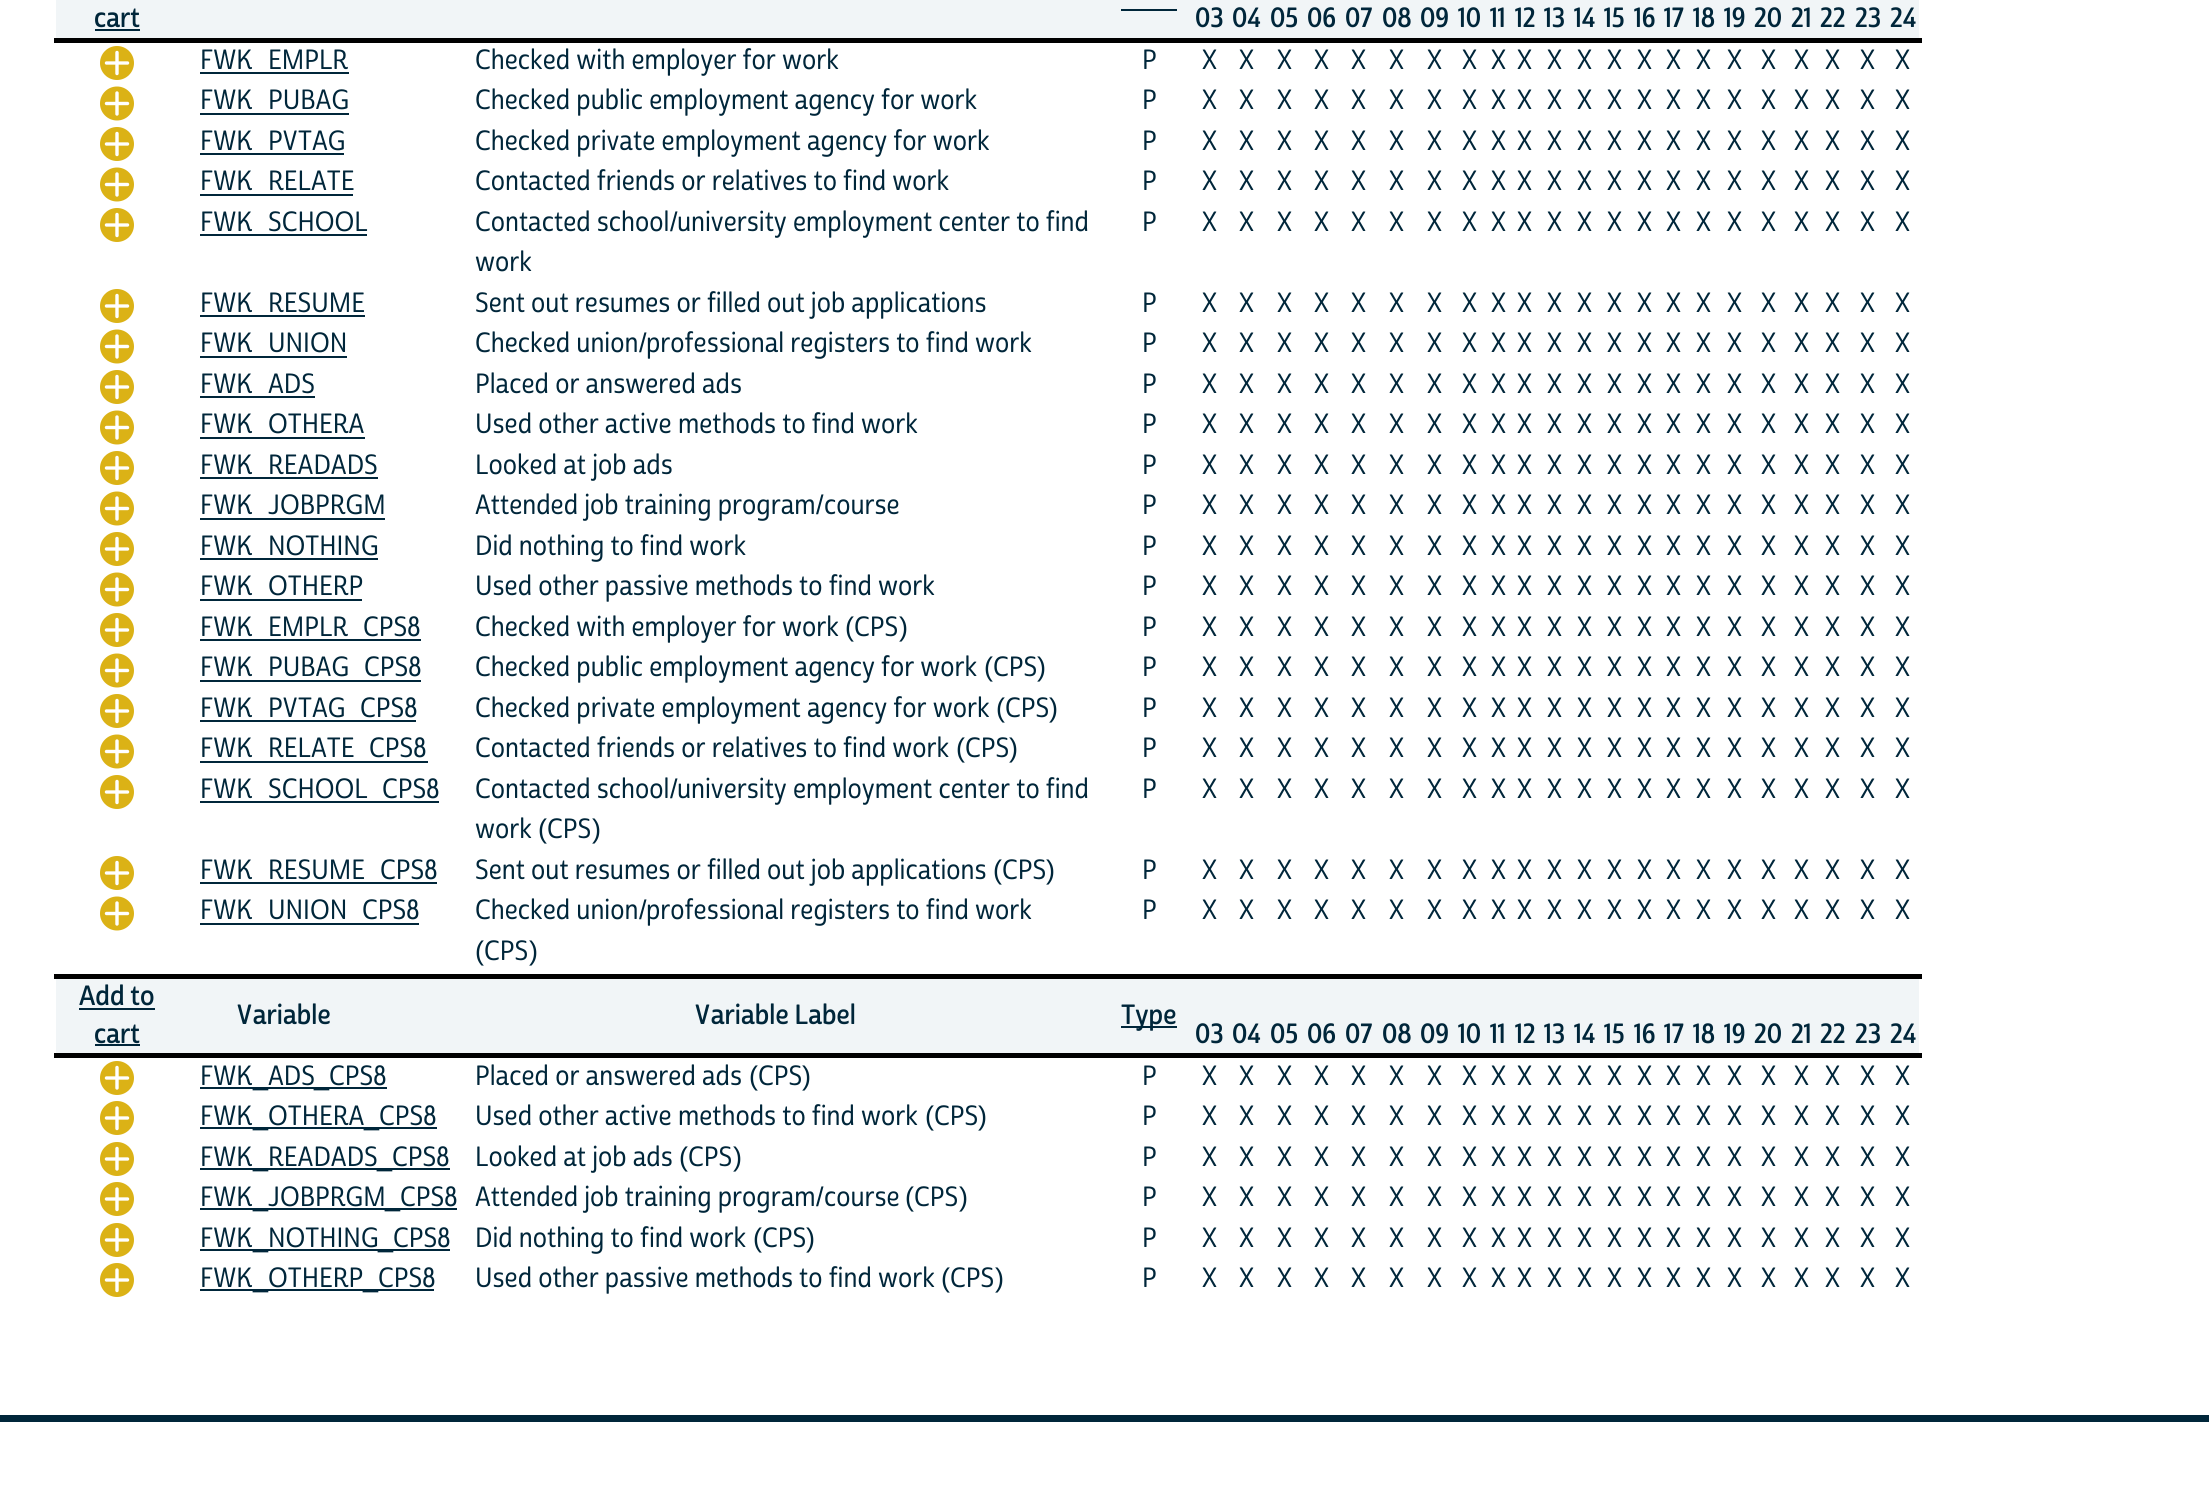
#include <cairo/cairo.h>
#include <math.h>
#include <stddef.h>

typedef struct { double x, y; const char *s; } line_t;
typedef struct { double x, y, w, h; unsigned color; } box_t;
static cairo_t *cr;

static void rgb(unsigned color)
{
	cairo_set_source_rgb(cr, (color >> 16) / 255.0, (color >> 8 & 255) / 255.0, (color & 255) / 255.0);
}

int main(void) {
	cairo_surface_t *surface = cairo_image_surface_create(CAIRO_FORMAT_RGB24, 2209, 1495);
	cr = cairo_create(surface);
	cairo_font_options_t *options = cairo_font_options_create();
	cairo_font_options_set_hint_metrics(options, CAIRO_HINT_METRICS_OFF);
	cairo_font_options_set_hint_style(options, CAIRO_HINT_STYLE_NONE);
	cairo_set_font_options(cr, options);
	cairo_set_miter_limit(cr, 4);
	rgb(0xffffff);
	cairo_paint(cr);
	{
		static const box_t items[] = {
			{56, 0, 1863, 38, 0xf1f5f7},
			{95, 29, 45, 2, 0x00263a},
			{1121, 9, 56, 2, 0x00263a},
			{54, 38, 1868, 5, 0x000000},
		};
		for (size_t i = 0; i < sizeof items / sizeof *items; i++) {
			rgb(items[i].color);
			cairo_rectangle(cr, items[i].x, items[i].y, items[i].w, items[i].h);
			cairo_fill(cr);
		}
	}
	rgb(0xdbb216);
	cairo_arc(cr, 117, 63, 17, 0, 2 * M_PI);
	cairo_fill(cr);
	cairo_new_path(cr);
	cairo_move_to(cr, 117, 52.5);
	cairo_line_to(cr, 117, 73.5);
	cairo_move_to(cr, 106.5, 63);
	cairo_line_to(cr, 127.5, 63);
	rgb(0xffffff);
	cairo_set_line_width(cr, 3.4);
	cairo_set_line_cap(cr, CAIRO_LINE_CAP_ROUND);
	cairo_stroke(cr);
	rgb(0x00263a);
	cairo_rectangle(cr, 200, 72, 149, 2);
	cairo_fill(cr);
	rgb(0xdbb216);
	cairo_arc(cr, 117, 103.5, 17, 0, 2 * M_PI);
	cairo_fill(cr);
	cairo_new_path(cr);
	cairo_move_to(cr, 117, 93);
	cairo_line_to(cr, 117, 114);
	cairo_move_to(cr, 106.5, 103.5);
	cairo_line_to(cr, 127.5, 103.5);
	rgb(0xffffff);
	cairo_stroke(cr);
	rgb(0x00263a);
	cairo_rectangle(cr, 200, 113, 149, 2);
	cairo_fill(cr);
	rgb(0xdbb216);
	cairo_arc(cr, 117, 144, 17, 0, 2 * M_PI);
	cairo_fill(cr);
	cairo_new_path(cr);
	cairo_move_to(cr, 117, 133.5);
	cairo_line_to(cr, 117, 154.5);
	cairo_move_to(cr, 106.5, 144);
	cairo_line_to(cr, 127.5, 144);
	rgb(0xffffff);
	cairo_stroke(cr);
	rgb(0x00263a);
	cairo_rectangle(cr, 200, 153, 144, 2);
	cairo_fill(cr);
	rgb(0xdbb216);
	cairo_arc(cr, 117, 184.5, 17, 0, 2 * M_PI);
	cairo_fill(cr);
	cairo_new_path(cr);
	cairo_move_to(cr, 117, 174);
	cairo_line_to(cr, 117, 195);
	cairo_move_to(cr, 106.5, 184.5);
	cairo_line_to(cr, 127.5, 184.5);
	rgb(0xffffff);
	cairo_stroke(cr);
	rgb(0x00263a);
	cairo_rectangle(cr, 200, 194, 153, 2);
	cairo_fill(cr);
	rgb(0xdbb216);
	cairo_arc(cr, 117, 225, 17, 0, 2 * M_PI);
	cairo_fill(cr);
	cairo_new_path(cr);
	cairo_move_to(cr, 117, 214.5);
	cairo_line_to(cr, 117, 235.5);
	cairo_move_to(cr, 106.5, 225);
	cairo_line_to(cr, 127.5, 225);
	rgb(0xffffff);
	cairo_stroke(cr);
	rgb(0x00263a);
	cairo_rectangle(cr, 200, 234, 167, 2);
	cairo_fill(cr);
	rgb(0xdbb216);
	cairo_arc(cr, 117, 306, 17, 0, 2 * M_PI);
	cairo_fill(cr);
	cairo_new_path(cr);
	cairo_move_to(cr, 117, 295.5);
	cairo_line_to(cr, 117, 316.5);
	cairo_move_to(cr, 106.5, 306);
	cairo_line_to(cr, 127.5, 306);
	rgb(0xffffff);
	cairo_stroke(cr);
	rgb(0x00263a);
	cairo_rectangle(cr, 200, 315, 165, 2);
	cairo_fill(cr);
	rgb(0xdbb216);
	cairo_arc(cr, 117, 346.5, 17, 0, 2 * M_PI);
	cairo_fill(cr);
	cairo_new_path(cr);
	cairo_move_to(cr, 117, 336);
	cairo_line_to(cr, 117, 357);
	cairo_move_to(cr, 106.5, 346.5);
	cairo_line_to(cr, 127.5, 346.5);
	rgb(0xffffff);
	cairo_stroke(cr);
	rgb(0x00263a);
	cairo_rectangle(cr, 200, 356, 147, 2);
	cairo_fill(cr);
	rgb(0xdbb216);
	cairo_arc(cr, 117, 387, 17, 0, 2 * M_PI);
	cairo_fill(cr);
	cairo_new_path(cr);
	cairo_move_to(cr, 117, 376.5);
	cairo_line_to(cr, 117, 397.5);
	cairo_move_to(cr, 106.5, 387);
	cairo_line_to(cr, 127.5, 387);
	rgb(0xffffff);
	cairo_stroke(cr);
	rgb(0x00263a);
	cairo_rectangle(cr, 200, 396, 115, 2);
	cairo_fill(cr);
	rgb(0xdbb216);
	cairo_arc(cr, 117, 427.5, 17, 0, 2 * M_PI);
	cairo_fill(cr);
	cairo_new_path(cr);
	cairo_move_to(cr, 117, 417);
	cairo_line_to(cr, 117, 438);
	cairo_move_to(cr, 106.5, 427.5);
	cairo_line_to(cr, 127.5, 427.5);
	rgb(0xffffff);
	cairo_stroke(cr);
	rgb(0x00263a);
	cairo_rectangle(cr, 200, 437, 165, 2);
	cairo_fill(cr);
	rgb(0xdbb216);
	cairo_arc(cr, 117, 468, 17, 0, 2 * M_PI);
	cairo_fill(cr);
	cairo_new_path(cr);
	cairo_move_to(cr, 117, 457.5);
	cairo_line_to(cr, 117, 478.5);
	cairo_move_to(cr, 106.5, 468);
	cairo_line_to(cr, 127.5, 468);
	rgb(0xffffff);
	cairo_stroke(cr);
	rgb(0x00263a);
	cairo_rectangle(cr, 200, 477, 178, 2);
	cairo_fill(cr);
	rgb(0xdbb216);
	cairo_arc(cr, 117, 508.5, 17, 0, 2 * M_PI);
	cairo_fill(cr);
	cairo_new_path(cr);
	cairo_move_to(cr, 117, 498);
	cairo_line_to(cr, 117, 519);
	cairo_move_to(cr, 106.5, 508.5);
	cairo_line_to(cr, 127.5, 508.5);
	rgb(0xffffff);
	cairo_stroke(cr);
	rgb(0x00263a);
	cairo_rectangle(cr, 200, 518, 185, 2);
	cairo_fill(cr);
	rgb(0xdbb216);
	cairo_arc(cr, 117, 549, 17, 0, 2 * M_PI);
	cairo_fill(cr);
	cairo_new_path(cr);
	cairo_move_to(cr, 117, 538.5);
	cairo_line_to(cr, 117, 559.5);
	cairo_move_to(cr, 106.5, 549);
	cairo_line_to(cr, 127.5, 549);
	rgb(0xffffff);
	cairo_stroke(cr);
	rgb(0x00263a);
	cairo_rectangle(cr, 200, 558, 178, 2);
	cairo_fill(cr);
	rgb(0xdbb216);
	cairo_arc(cr, 117, 589.5, 17, 0, 2 * M_PI);
	cairo_fill(cr);
	cairo_new_path(cr);
	cairo_move_to(cr, 117, 579);
	cairo_line_to(cr, 117, 600);
	cairo_move_to(cr, 106.5, 589.5);
	cairo_line_to(cr, 127.5, 589.5);
	rgb(0xffffff);
	cairo_stroke(cr);
	rgb(0x00263a);
	cairo_rectangle(cr, 200, 599, 162, 2);
	cairo_fill(cr);
	rgb(0xdbb216);
	cairo_arc(cr, 117, 630, 17, 0, 2 * M_PI);
	cairo_fill(cr);
	cairo_new_path(cr);
	cairo_move_to(cr, 117, 619.5);
	cairo_line_to(cr, 117, 640.5);
	cairo_move_to(cr, 106.5, 630);
	cairo_line_to(cr, 127.5, 630);
	rgb(0xffffff);
	cairo_stroke(cr);
	rgb(0x00263a);
	cairo_rectangle(cr, 200, 639, 221, 2);
	cairo_fill(cr);
	rgb(0xdbb216);
	cairo_arc(cr, 117, 670.5, 17, 0, 2 * M_PI);
	cairo_fill(cr);
	cairo_new_path(cr);
	cairo_move_to(cr, 117, 660);
	cairo_line_to(cr, 117, 681);
	cairo_move_to(cr, 106.5, 670.5);
	cairo_line_to(cr, 127.5, 670.5);
	rgb(0xffffff);
	cairo_stroke(cr);
	rgb(0x00263a);
	cairo_rectangle(cr, 200, 680, 221, 2);
	cairo_fill(cr);
	rgb(0xdbb216);
	cairo_arc(cr, 117, 711, 17, 0, 2 * M_PI);
	cairo_fill(cr);
	cairo_new_path(cr);
	cairo_move_to(cr, 117, 700.5);
	cairo_line_to(cr, 117, 721.5);
	cairo_move_to(cr, 106.5, 711);
	cairo_line_to(cr, 127.5, 711);
	rgb(0xffffff);
	cairo_stroke(cr);
	rgb(0x00263a);
	cairo_rectangle(cr, 200, 720, 216, 2);
	cairo_fill(cr);
	rgb(0xdbb216);
	cairo_arc(cr, 117, 751.5, 17, 0, 2 * M_PI);
	cairo_fill(cr);
	cairo_new_path(cr);
	cairo_move_to(cr, 117, 741);
	cairo_line_to(cr, 117, 762);
	cairo_move_to(cr, 106.5, 751.5);
	cairo_line_to(cr, 127.5, 751.5);
	rgb(0xffffff);
	cairo_stroke(cr);
	rgb(0x00263a);
	cairo_rectangle(cr, 200, 761, 228, 2);
	cairo_fill(cr);
	rgb(0xdbb216);
	cairo_arc(cr, 117, 792, 17, 0, 2 * M_PI);
	cairo_fill(cr);
	cairo_new_path(cr);
	cairo_move_to(cr, 117, 781.5);
	cairo_line_to(cr, 117, 802.5);
	cairo_move_to(cr, 106.5, 792);
	cairo_line_to(cr, 127.5, 792);
	rgb(0xffffff);
	cairo_stroke(cr);
	rgb(0x00263a);
	cairo_rectangle(cr, 200, 801, 239, 2);
	cairo_fill(cr);
	rgb(0xdbb216);
	cairo_arc(cr, 117, 873, 17, 0, 2 * M_PI);
	cairo_fill(cr);
	cairo_new_path(cr);
	cairo_move_to(cr, 117, 862.5);
	cairo_line_to(cr, 117, 883.5);
	cairo_move_to(cr, 106.5, 873);
	cairo_line_to(cr, 127.5, 873);
	rgb(0xffffff);
	cairo_stroke(cr);
	rgb(0x00263a);
	cairo_rectangle(cr, 200, 882, 237, 2);
	cairo_fill(cr);
	rgb(0xdbb216);
	cairo_arc(cr, 117, 913.5, 17, 0, 2 * M_PI);
	cairo_fill(cr);
	cairo_new_path(cr);
	cairo_move_to(cr, 117, 903);
	cairo_line_to(cr, 117, 924);
	cairo_move_to(cr, 106.5, 913.5);
	cairo_line_to(cr, 127.5, 913.5);
	rgb(0xffffff);
	cairo_stroke(cr);
	{
		static const box_t items[] = {
			{200, 923, 219, 2, 0x00263a},
			{56, 979, 1863, 74, 0xf1f5f7},
			{79, 1008, 76, 2, 0x00263a},
			{95, 1044, 45, 2, 0x00263a},
			{1121, 1026, 56, 2, 0x00263a},
			{54, 974, 1868, 5, 0x000000},
			{54, 1053, 1868, 5, 0x000000},
		};
		for (size_t i = 0; i < sizeof items / sizeof *items; i++) {
			rgb(items[i].color);
			cairo_rectangle(cr, items[i].x, items[i].y, items[i].w, items[i].h);
			cairo_fill(cr);
		}
	}
	rgb(0xdbb216);
	cairo_arc(cr, 117, 1078, 17, 0, 2 * M_PI);
	cairo_fill(cr);
	cairo_new_path(cr);
	cairo_move_to(cr, 117, 1067.5);
	cairo_line_to(cr, 117, 1088);
	cairo_move_to(cr, 106.5, 1078);
	cairo_line_to(cr, 127.5, 1078);
	rgb(0xffffff);
	cairo_stroke(cr);
	rgb(0x00263a);
	cairo_rectangle(cr, 200, 1087, 187, 2);
	cairo_fill(cr);
	rgb(0xdbb216);
	cairo_arc(cr, 117, 1118, 17, 0, 2 * M_PI);
	cairo_fill(cr);
	cairo_new_path(cr);
	cairo_move_to(cr, 117, 1108);
	cairo_line_to(cr, 117, 1128.5);
	cairo_move_to(cr, 106.5, 1118);
	cairo_line_to(cr, 127.5, 1118);
	rgb(0xffffff);
	cairo_stroke(cr);
	rgb(0x00263a);
	cairo_rectangle(cr, 200, 1127, 237, 2);
	cairo_fill(cr);
	rgb(0xdbb216);
	cairo_arc(cr, 117, 1159, 17, 0, 2 * M_PI);
	cairo_fill(cr);
	cairo_new_path(cr);
	cairo_move_to(cr, 117, 1148.5);
	cairo_line_to(cr, 117, 1169);
	cairo_move_to(cr, 106.5, 1159);
	cairo_line_to(cr, 127.5, 1159);
	rgb(0xffffff);
	cairo_stroke(cr);
	rgb(0x00263a);
	cairo_rectangle(cr, 200, 1168, 250, 2);
	cairo_fill(cr);
	rgb(0xdbb216);
	cairo_arc(cr, 117, 1199, 17, 0, 2 * M_PI);
	cairo_fill(cr);
	cairo_new_path(cr);
	cairo_move_to(cr, 117, 1189);
	cairo_line_to(cr, 117, 1209.5);
	cairo_move_to(cr, 106.5, 1199);
	cairo_line_to(cr, 127.5, 1199);
	rgb(0xffffff);
	cairo_stroke(cr);
	rgb(0x00263a);
	cairo_rectangle(cr, 200, 1208, 257, 2);
	cairo_fill(cr);
	rgb(0xdbb216);
	cairo_arc(cr, 117, 1240, 17, 0, 2 * M_PI);
	cairo_fill(cr);
	cairo_new_path(cr);
	cairo_move_to(cr, 117, 1229.5);
	cairo_line_to(cr, 117, 1250);
	cairo_move_to(cr, 106.5, 1240);
	cairo_line_to(cr, 127.5, 1240);
	rgb(0xffffff);
	cairo_stroke(cr);
	rgb(0x00263a);
	cairo_rectangle(cr, 200, 1249, 250, 2);
	cairo_fill(cr);
	rgb(0xdbb216);
	cairo_arc(cr, 117, 1280, 17, 0, 2 * M_PI);
	cairo_fill(cr);
	cairo_new_path(cr);
	cairo_move_to(cr, 117, 1270);
	cairo_line_to(cr, 117, 1290.5);
	cairo_move_to(cr, 106.5, 1280);
	cairo_line_to(cr, 127.5, 1280);
	rgb(0xffffff);
	cairo_stroke(cr);
	rgb(0x00263a);
	cairo_rectangle(cr, 200, 1289, 234, 2);
	cairo_fill(cr);
	cairo_rectangle(cr, 0, 1415, 2209, 7);
	cairo_fill(cr);
	cairo_select_font_face(cr, "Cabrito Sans", CAIRO_FONT_SLANT_NORMAL, CAIRO_FONT_WEIGHT_BOLD);
	cairo_set_font_size(cr, 27);
	{
		static const line_t items[] = {
			{94, 27, "cart"},
			{1195, 27, "03"},
			{1232, 27, "04"},
			{1270, 27, "05"},
			{1307, 27, "06"},
			{1345, 27, "07"},
			{1382, 27, "08"},
			{1420, 27, "09"},
			{1458, 27, "10"},
			{1490, 27, "11"},
			{1515, 27, "12"},
			{1544, 27, "13"},
			{1574, 27, "14"},
			{1604, 27, "15"},
			{1634, 27, "16"},
			{1664, 27, "17"},
			{1693, 27, "18"},
			{1724, 27, "19"},
			{1754, 27, "20"},
			{1791, 27, "21"},
			{1820, 27, "22"},
			{1855, 27, "23"},
			{1890, 27, "24"},
		};
		for (size_t i = 0; i < sizeof items / sizeof *items; i++) {
			cairo_move_to(cr, items[i].x, items[i].y);
			cairo_show_text(cr, items[i].s);
		}
	}
	cairo_select_font_face(cr, "Cabrito Sans SemiBold", CAIRO_FONT_SLANT_NORMAL, CAIRO_FONT_WEIGHT_NORMAL);
	{
		static const line_t items[] = {
			{200, 69, "FWK"},
			{268, 69, "EMPLR"},
			{475, 69, "Checked with employer for work"},
			{1142, 69, "P"},
			{1202, 69, "X"},
			{1239, 69, "X"},
			{1277, 69, "X"},
			{1314, 69, "X"},
			{1351, 69, "X"},
			{1389, 69, "X"},
			{1427, 69, "X"},
			{1462, 69, "X"},
			{1491, 69, "X"},
			{1517, 69, "X"},
			{1547, 69, "X"},
			{1577, 69, "X"},
			{1607, 69, "X"},
			{1637, 69, "X"},
			{1666, 69, "X"},
			{1696, 69, "X"},
			{1727, 69, "X"},
			{1761, 69, "X"},
			{1794, 69, "X"},
			{1825, 69, "X"},
			{1860, 69, "X"},
			{1895, 69, "X"},
			{200, 109, "FWK"},
			{268, 109, "PUBAG"},
			{475, 109, "Checked public employment agency for work"},
			{1142, 109, "P"},
			{1202, 109, "X"},
			{1239, 109, "X"},
			{1277, 109, "X"},
			{1314, 109, "X"},
			{1351, 109, "X"},
			{1389, 109, "X"},
			{1427, 109, "X"},
			{1462, 109, "X"},
			{1491, 109, "X"},
			{1517, 109, "X"},
			{1547, 109, "X"},
			{1577, 109, "X"},
			{1607, 109, "X"},
			{1637, 109, "X"},
			{1666, 109, "X"},
			{1696, 109, "X"},
			{1727, 109, "X"},
			{1761, 109, "X"},
			{1794, 109, "X"},
			{1825, 109, "X"},
			{1860, 109, "X"},
			{1895, 109, "X"},
			{200, 150, "FWK"},
			{268, 150, "PVTAG"},
			{475, 150, "Checked private employment agency for work"},
			{1142, 150, "P"},
			{1202, 150, "X"},
			{1239, 150, "X"},
			{1277, 150, "X"},
			{1314, 150, "X"},
			{1351, 150, "X"},
			{1389, 150, "X"},
			{1427, 150, "X"},
			{1462, 150, "X"},
			{1491, 150, "X"},
			{1517, 150, "X"},
			{1547, 150, "X"},
			{1577, 150, "X"},
			{1607, 150, "X"},
			{1637, 150, "X"},
			{1666, 150, "X"},
			{1696, 150, "X"},
			{1727, 150, "X"},
			{1761, 150, "X"},
			{1794, 150, "X"},
			{1825, 150, "X"},
			{1860, 150, "X"},
			{1895, 150, "X"},
			{200, 190, "FWK"},
			{268, 190, "RELATE"},
			{475, 190, "Contacted friends or relatives to find work"},
			{1142, 190, "P"},
			{1202, 190, "X"},
			{1239, 190, "X"},
			{1277, 190, "X"},
			{1314, 190, "X"},
			{1351, 190, "X"},
			{1389, 190, "X"},
			{1427, 190, "X"},
			{1462, 190, "X"},
			{1491, 190, "X"},
			{1517, 190, "X"},
			{1547, 190, "X"},
			{1577, 190, "X"},
			{1607, 190, "X"},
			{1637, 190, "X"},
			{1666, 190, "X"},
			{1696, 190, "X"},
			{1727, 190, "X"},
			{1761, 190, "X"},
			{1794, 190, "X"},
			{1825, 190, "X"},
			{1860, 190, "X"},
			{1895, 190, "X"},
			{200, 231, "FWK"},
			{268, 231, "SCHOOL"},
			{475, 231, "Contacted school"},
		};
		for (size_t i = 0; i < sizeof items / sizeof *items; i++) {
			cairo_move_to(cr, items[i].x, items[i].y);
			cairo_show_text(cr, items[i].s);
		}
	}
	cairo_select_font_face(cr, "Liberation Sans", CAIRO_FONT_SLANT_NORMAL, CAIRO_FONT_WEIGHT_NORMAL);
	cairo_move_to(cr, 670, 231);
	cairo_show_text(cr, "/");
	cairo_select_font_face(cr, "Cabrito Sans SemiBold", CAIRO_FONT_SLANT_NORMAL, CAIRO_FONT_WEIGHT_NORMAL);
	{
		static const line_t items[] = {
			{677, 231, "university employment center to find"},
			{475, 271, "work"},
			{1142, 231, "P"},
			{1202, 231, "X"},
			{1239, 231, "X"},
			{1277, 231, "X"},
			{1314, 231, "X"},
			{1351, 231, "X"},
			{1389, 231, "X"},
			{1427, 231, "X"},
			{1462, 231, "X"},
			{1491, 231, "X"},
			{1517, 231, "X"},
			{1547, 231, "X"},
			{1577, 231, "X"},
			{1607, 231, "X"},
			{1637, 231, "X"},
			{1666, 231, "X"},
			{1696, 231, "X"},
			{1727, 231, "X"},
			{1761, 231, "X"},
			{1794, 231, "X"},
			{1825, 231, "X"},
			{1860, 231, "X"},
			{1895, 231, "X"},
			{200, 312, "FWK"},
			{268, 312, "RESUME"},
			{475, 312, "Sent out resumes or filled out job applications"},
			{1142, 312, "P"},
			{1202, 312, "X"},
			{1239, 312, "X"},
			{1277, 312, "X"},
			{1314, 312, "X"},
			{1351, 312, "X"},
			{1389, 312, "X"},
			{1427, 312, "X"},
			{1462, 312, "X"},
			{1491, 312, "X"},
			{1517, 312, "X"},
			{1547, 312, "X"},
			{1577, 312, "X"},
			{1607, 312, "X"},
			{1637, 312, "X"},
			{1666, 312, "X"},
			{1696, 312, "X"},
			{1727, 312, "X"},
			{1761, 312, "X"},
			{1794, 312, "X"},
			{1825, 312, "X"},
			{1860, 312, "X"},
			{1895, 312, "X"},
			{200, 352, "FWK"},
			{268, 352, "UNION"},
			{475, 352, "Checked union"},
		};
		for (size_t i = 0; i < sizeof items / sizeof *items; i++) {
			cairo_move_to(cr, items[i].x, items[i].y);
			cairo_show_text(cr, items[i].s);
		}
	}
	cairo_select_font_face(cr, "Liberation Sans", CAIRO_FONT_SLANT_NORMAL, CAIRO_FONT_WEIGHT_NORMAL);
	cairo_move_to(cr, 639, 352);
	cairo_show_text(cr, "/");
	cairo_select_font_face(cr, "Cabrito Sans SemiBold", CAIRO_FONT_SLANT_NORMAL, CAIRO_FONT_WEIGHT_NORMAL);
	{
		static const line_t items[] = {
			{646, 352, "professional registers to find work"},
			{1142, 352, "P"},
			{1202, 352, "X"},
			{1239, 352, "X"},
			{1277, 352, "X"},
			{1314, 352, "X"},
			{1351, 352, "X"},
			{1389, 352, "X"},
			{1427, 352, "X"},
			{1462, 352, "X"},
			{1491, 352, "X"},
			{1517, 352, "X"},
			{1547, 352, "X"},
			{1577, 352, "X"},
			{1607, 352, "X"},
			{1637, 352, "X"},
			{1666, 352, "X"},
			{1696, 352, "X"},
			{1727, 352, "X"},
			{1761, 352, "X"},
			{1794, 352, "X"},
			{1825, 352, "X"},
			{1860, 352, "X"},
			{1895, 352, "X"},
			{200, 393, "FWK"},
			{268, 393, "ADS"},
			{475, 393, "Placed or answered ads"},
			{1142, 393, "P"},
			{1202, 393, "X"},
			{1239, 393, "X"},
			{1277, 393, "X"},
			{1314, 393, "X"},
			{1351, 393, "X"},
			{1389, 393, "X"},
			{1427, 393, "X"},
			{1462, 393, "X"},
			{1491, 393, "X"},
			{1517, 393, "X"},
			{1547, 393, "X"},
			{1577, 393, "X"},
			{1607, 393, "X"},
			{1637, 393, "X"},
			{1666, 393, "X"},
			{1696, 393, "X"},
			{1727, 393, "X"},
			{1761, 393, "X"},
			{1794, 393, "X"},
			{1825, 393, "X"},
			{1860, 393, "X"},
			{1895, 393, "X"},
			{200, 433, "FWK"},
			{268, 433, "OTHERA"},
			{475, 433, "Used other active methods to find work"},
			{1142, 433, "P"},
			{1202, 433, "X"},
			{1239, 433, "X"},
			{1277, 433, "X"},
			{1314, 433, "X"},
			{1351, 433, "X"},
			{1389, 433, "X"},
			{1427, 433, "X"},
			{1462, 433, "X"},
			{1491, 433, "X"},
			{1517, 433, "X"},
			{1547, 433, "X"},
			{1577, 433, "X"},
			{1607, 433, "X"},
			{1637, 433, "X"},
			{1666, 433, "X"},
			{1696, 433, "X"},
			{1727, 433, "X"},
			{1761, 433, "X"},
			{1794, 433, "X"},
			{1825, 433, "X"},
			{1860, 433, "X"},
			{1895, 433, "X"},
			{200, 474, "FWK"},
			{268, 474, "READADS"},
			{475, 474, "Looked at job ads"},
			{1142, 474, "P"},
			{1202, 474, "X"},
			{1239, 474, "X"},
			{1277, 474, "X"},
			{1314, 474, "X"},
			{1351, 474, "X"},
			{1389, 474, "X"},
			{1427, 474, "X"},
			{1462, 474, "X"},
			{1491, 474, "X"},
			{1517, 474, "X"},
			{1547, 474, "X"},
			{1577, 474, "X"},
			{1607, 474, "X"},
			{1637, 474, "X"},
			{1666, 474, "X"},
			{1696, 474, "X"},
			{1727, 474, "X"},
			{1761, 474, "X"},
			{1794, 474, "X"},
			{1825, 474, "X"},
			{1860, 474, "X"},
			{1895, 474, "X"},
			{200, 514, "FWK"},
			{268, 514, "JOBPRGM"},
			{475, 514, "Attended job training program"},
		};
		for (size_t i = 0; i < sizeof items / sizeof *items; i++) {
			cairo_move_to(cr, items[i].x, items[i].y);
			cairo_show_text(cr, items[i].s);
		}
	}
	cairo_select_font_face(cr, "Liberation Sans", CAIRO_FONT_SLANT_NORMAL, CAIRO_FONT_WEIGHT_NORMAL);
	cairo_move_to(cr, 816, 514);
	cairo_show_text(cr, "/");
	cairo_select_font_face(cr, "Cabrito Sans SemiBold", CAIRO_FONT_SLANT_NORMAL, CAIRO_FONT_WEIGHT_NORMAL);
	{
		static const line_t items[] = {
			{824, 514, "course"},
			{1142, 514, "P"},
			{1202, 514, "X"},
			{1239, 514, "X"},
			{1277, 514, "X"},
			{1314, 514, "X"},
			{1351, 514, "X"},
			{1389, 514, "X"},
			{1427, 514, "X"},
			{1462, 514, "X"},
			{1491, 514, "X"},
			{1517, 514, "X"},
			{1547, 514, "X"},
			{1577, 514, "X"},
			{1607, 514, "X"},
			{1637, 514, "X"},
			{1666, 514, "X"},
			{1696, 514, "X"},
			{1727, 514, "X"},
			{1761, 514, "X"},
			{1794, 514, "X"},
			{1825, 514, "X"},
			{1860, 514, "X"},
			{1895, 514, "X"},
			{200, 555, "FWK"},
			{268, 555, "NOTHING"},
			{475, 555, "Did nothing to find work"},
			{1142, 555, "P"},
			{1202, 555, "X"},
			{1239, 555, "X"},
			{1277, 555, "X"},
			{1314, 555, "X"},
			{1351, 555, "X"},
			{1389, 555, "X"},
			{1427, 555, "X"},
			{1462, 555, "X"},
			{1491, 555, "X"},
			{1517, 555, "X"},
			{1547, 555, "X"},
			{1577, 555, "X"},
			{1607, 555, "X"},
			{1637, 555, "X"},
			{1666, 555, "X"},
			{1696, 555, "X"},
			{1727, 555, "X"},
			{1761, 555, "X"},
			{1794, 555, "X"},
			{1825, 555, "X"},
			{1860, 555, "X"},
			{1895, 555, "X"},
			{200, 595, "FWK"},
			{268, 595, "OTHERP"},
			{475, 595, "Used other passive methods to find work"},
			{1142, 595, "P"},
			{1202, 595, "X"},
			{1239, 595, "X"},
			{1277, 595, "X"},
			{1314, 595, "X"},
			{1351, 595, "X"},
			{1389, 595, "X"},
			{1427, 595, "X"},
			{1462, 595, "X"},
			{1491, 595, "X"},
			{1517, 595, "X"},
			{1547, 595, "X"},
			{1577, 595, "X"},
			{1607, 595, "X"},
			{1637, 595, "X"},
			{1666, 595, "X"},
			{1696, 595, "X"},
			{1727, 595, "X"},
			{1761, 595, "X"},
			{1794, 595, "X"},
			{1825, 595, "X"},
			{1860, 595, "X"},
			{1895, 595, "X"},
			{200, 636, "FWK"},
			{268, 636, "EMPLR"},
			{363, 636, "CPS8"},
			{475, 636, "Checked with employer for work"},
		};
		for (size_t i = 0; i < sizeof items / sizeof *items; i++) {
			cairo_move_to(cr, items[i].x, items[i].y);
			cairo_show_text(cr, items[i].s);
		}
	}
	cairo_select_font_face(cr, "Liberation Sans", CAIRO_FONT_SLANT_NORMAL, CAIRO_FONT_WEIGHT_NORMAL);
	cairo_move_to(cr, 845, 636);
	cairo_show_text(cr, "(");
	cairo_select_font_face(cr, "Cabrito Sans SemiBold", CAIRO_FONT_SLANT_NORMAL, CAIRO_FONT_WEIGHT_NORMAL);
	cairo_move_to(cr, 854, 636);
	cairo_show_text(cr, "CPS");
	cairo_select_font_face(cr, "Liberation Sans", CAIRO_FONT_SLANT_NORMAL, CAIRO_FONT_WEIGHT_NORMAL);
	cairo_move_to(cr, 899, 636);
	cairo_show_text(cr, ")");
	cairo_select_font_face(cr, "Cabrito Sans SemiBold", CAIRO_FONT_SLANT_NORMAL, CAIRO_FONT_WEIGHT_NORMAL);
	{
		static const line_t items[] = {
			{1142, 636, "P"},
			{1202, 636, "X"},
			{1239, 636, "X"},
			{1277, 636, "X"},
			{1314, 636, "X"},
			{1351, 636, "X"},
			{1389, 636, "X"},
			{1427, 636, "X"},
			{1462, 636, "X"},
			{1491, 636, "X"},
			{1517, 636, "X"},
			{1547, 636, "X"},
			{1577, 636, "X"},
			{1607, 636, "X"},
			{1637, 636, "X"},
			{1666, 636, "X"},
			{1696, 636, "X"},
			{1727, 636, "X"},
			{1761, 636, "X"},
			{1794, 636, "X"},
			{1825, 636, "X"},
			{1860, 636, "X"},
			{1895, 636, "X"},
			{200, 676, "FWK"},
			{268, 676, "PUBAG"},
			{364, 676, "CPS8"},
			{475, 676, "Checked public employment agency for work"},
		};
		for (size_t i = 0; i < sizeof items / sizeof *items; i++) {
			cairo_move_to(cr, items[i].x, items[i].y);
			cairo_show_text(cr, items[i].s);
		}
	}
	cairo_select_font_face(cr, "Liberation Sans", CAIRO_FONT_SLANT_NORMAL, CAIRO_FONT_WEIGHT_NORMAL);
	cairo_move_to(cr, 984, 676);
	cairo_show_text(cr, "(");
	cairo_select_font_face(cr, "Cabrito Sans SemiBold", CAIRO_FONT_SLANT_NORMAL, CAIRO_FONT_WEIGHT_NORMAL);
	cairo_move_to(cr, 993, 676);
	cairo_show_text(cr, "CPS");
	cairo_select_font_face(cr, "Liberation Sans", CAIRO_FONT_SLANT_NORMAL, CAIRO_FONT_WEIGHT_NORMAL);
	cairo_move_to(cr, 1037, 676);
	cairo_show_text(cr, ")");
	cairo_select_font_face(cr, "Cabrito Sans SemiBold", CAIRO_FONT_SLANT_NORMAL, CAIRO_FONT_WEIGHT_NORMAL);
	{
		static const line_t items[] = {
			{1142, 676, "P"},
			{1202, 676, "X"},
			{1239, 676, "X"},
			{1277, 676, "X"},
			{1314, 676, "X"},
			{1351, 676, "X"},
			{1389, 676, "X"},
			{1427, 676, "X"},
			{1462, 676, "X"},
			{1491, 676, "X"},
			{1517, 676, "X"},
			{1547, 676, "X"},
			{1577, 676, "X"},
			{1607, 676, "X"},
			{1637, 676, "X"},
			{1666, 676, "X"},
			{1696, 676, "X"},
			{1727, 676, "X"},
			{1761, 676, "X"},
			{1794, 676, "X"},
			{1825, 676, "X"},
			{1860, 676, "X"},
			{1895, 676, "X"},
			{200, 717, "FWK"},
			{268, 717, "PVTAG"},
			{360, 717, "CPS8"},
			{475, 717, "Checked private employment agency for work"},
		};
		for (size_t i = 0; i < sizeof items / sizeof *items; i++) {
			cairo_move_to(cr, items[i].x, items[i].y);
			cairo_show_text(cr, items[i].s);
		}
	}
	cairo_select_font_face(cr, "Liberation Sans", CAIRO_FONT_SLANT_NORMAL, CAIRO_FONT_WEIGHT_NORMAL);
	cairo_move_to(cr, 996, 717);
	cairo_show_text(cr, "(");
	cairo_select_font_face(cr, "Cabrito Sans SemiBold", CAIRO_FONT_SLANT_NORMAL, CAIRO_FONT_WEIGHT_NORMAL);
	cairo_move_to(cr, 1005, 717);
	cairo_show_text(cr, "CPS");
	cairo_select_font_face(cr, "Liberation Sans", CAIRO_FONT_SLANT_NORMAL, CAIRO_FONT_WEIGHT_NORMAL);
	cairo_move_to(cr, 1049, 717);
	cairo_show_text(cr, ")");
	cairo_select_font_face(cr, "Cabrito Sans SemiBold", CAIRO_FONT_SLANT_NORMAL, CAIRO_FONT_WEIGHT_NORMAL);
	{
		static const line_t items[] = {
			{1142, 717, "P"},
			{1202, 717, "X"},
			{1239, 717, "X"},
			{1277, 717, "X"},
			{1314, 717, "X"},
			{1351, 717, "X"},
			{1389, 717, "X"},
			{1427, 717, "X"},
			{1462, 717, "X"},
			{1491, 717, "X"},
			{1517, 717, "X"},
			{1547, 717, "X"},
			{1577, 717, "X"},
			{1607, 717, "X"},
			{1637, 717, "X"},
			{1666, 717, "X"},
			{1696, 717, "X"},
			{1727, 717, "X"},
			{1761, 717, "X"},
			{1794, 717, "X"},
			{1825, 717, "X"},
			{1860, 717, "X"},
			{1895, 717, "X"},
			{200, 757, "FWK"},
			{268, 757, "RELATE"},
			{369, 757, "CPS8"},
			{475, 757, "Contacted friends or relatives to find work"},
		};
		for (size_t i = 0; i < sizeof items / sizeof *items; i++) {
			cairo_move_to(cr, items[i].x, items[i].y);
			cairo_show_text(cr, items[i].s);
		}
	}
	cairo_select_font_face(cr, "Liberation Sans", CAIRO_FONT_SLANT_NORMAL, CAIRO_FONT_WEIGHT_NORMAL);
	cairo_move_to(cr, 956, 757);
	cairo_show_text(cr, "(");
	cairo_select_font_face(cr, "Cabrito Sans SemiBold", CAIRO_FONT_SLANT_NORMAL, CAIRO_FONT_WEIGHT_NORMAL);
	cairo_move_to(cr, 965, 757);
	cairo_show_text(cr, "CPS");
	cairo_select_font_face(cr, "Liberation Sans", CAIRO_FONT_SLANT_NORMAL, CAIRO_FONT_WEIGHT_NORMAL);
	cairo_move_to(cr, 1009, 757);
	cairo_show_text(cr, ")");
	cairo_select_font_face(cr, "Cabrito Sans SemiBold", CAIRO_FONT_SLANT_NORMAL, CAIRO_FONT_WEIGHT_NORMAL);
	{
		static const line_t items[] = {
			{1142, 757, "P"},
			{1202, 757, "X"},
			{1239, 757, "X"},
			{1277, 757, "X"},
			{1314, 757, "X"},
			{1351, 757, "X"},
			{1389, 757, "X"},
			{1427, 757, "X"},
			{1462, 757, "X"},
			{1491, 757, "X"},
			{1517, 757, "X"},
			{1547, 757, "X"},
			{1577, 757, "X"},
			{1607, 757, "X"},
			{1637, 757, "X"},
			{1666, 757, "X"},
			{1696, 757, "X"},
			{1727, 757, "X"},
			{1761, 757, "X"},
			{1794, 757, "X"},
			{1825, 757, "X"},
			{1860, 757, "X"},
			{1895, 757, "X"},
			{200, 798, "FWK"},
			{268, 798, "SCHOOL"},
			{382, 798, "CPS8"},
			{475, 798, "Contacted school"},
		};
		for (size_t i = 0; i < sizeof items / sizeof *items; i++) {
			cairo_move_to(cr, items[i].x, items[i].y);
			cairo_show_text(cr, items[i].s);
		}
	}
	cairo_select_font_face(cr, "Liberation Sans", CAIRO_FONT_SLANT_NORMAL, CAIRO_FONT_WEIGHT_NORMAL);
	cairo_move_to(cr, 670, 798);
	cairo_show_text(cr, "/");
	cairo_select_font_face(cr, "Cabrito Sans SemiBold", CAIRO_FONT_SLANT_NORMAL, CAIRO_FONT_WEIGHT_NORMAL);
	cairo_move_to(cr, 677, 798);
	cairo_show_text(cr, "university employment center to find");
	cairo_move_to(cr, 475, 838);
	cairo_show_text(cr, "work");
	cairo_select_font_face(cr, "Liberation Sans", CAIRO_FONT_SLANT_NORMAL, CAIRO_FONT_WEIGHT_NORMAL);
	cairo_move_to(cr, 538, 838);
	cairo_show_text(cr, "(");
	cairo_select_font_face(cr, "Cabrito Sans SemiBold", CAIRO_FONT_SLANT_NORMAL, CAIRO_FONT_WEIGHT_NORMAL);
	cairo_move_to(cr, 547, 838);
	cairo_show_text(cr, "CPS");
	cairo_select_font_face(cr, "Liberation Sans", CAIRO_FONT_SLANT_NORMAL, CAIRO_FONT_WEIGHT_NORMAL);
	cairo_move_to(cr, 592, 838);
	cairo_show_text(cr, ")");
	cairo_select_font_face(cr, "Cabrito Sans SemiBold", CAIRO_FONT_SLANT_NORMAL, CAIRO_FONT_WEIGHT_NORMAL);
	{
		static const line_t items[] = {
			{1142, 798, "P"},
			{1202, 798, "X"},
			{1239, 798, "X"},
			{1277, 798, "X"},
			{1314, 798, "X"},
			{1351, 798, "X"},
			{1389, 798, "X"},
			{1427, 798, "X"},
			{1462, 798, "X"},
			{1491, 798, "X"},
			{1517, 798, "X"},
			{1547, 798, "X"},
			{1577, 798, "X"},
			{1607, 798, "X"},
			{1637, 798, "X"},
			{1666, 798, "X"},
			{1696, 798, "X"},
			{1727, 798, "X"},
			{1761, 798, "X"},
			{1794, 798, "X"},
			{1825, 798, "X"},
			{1860, 798, "X"},
			{1895, 798, "X"},
			{200, 879, "FWK"},
			{268, 879, "RESUME"},
			{380, 879, "CPS8"},
			{475, 879, "Sent out resumes or filled out job applications"},
		};
		for (size_t i = 0; i < sizeof items / sizeof *items; i++) {
			cairo_move_to(cr, items[i].x, items[i].y);
			cairo_show_text(cr, items[i].s);
		}
	}
	cairo_select_font_face(cr, "Liberation Sans", CAIRO_FONT_SLANT_NORMAL, CAIRO_FONT_WEIGHT_NORMAL);
	cairo_move_to(cr, 993, 879);
	cairo_show_text(cr, "(");
	cairo_select_font_face(cr, "Cabrito Sans SemiBold", CAIRO_FONT_SLANT_NORMAL, CAIRO_FONT_WEIGHT_NORMAL);
	cairo_move_to(cr, 1002, 879);
	cairo_show_text(cr, "CPS");
	cairo_select_font_face(cr, "Liberation Sans", CAIRO_FONT_SLANT_NORMAL, CAIRO_FONT_WEIGHT_NORMAL);
	cairo_move_to(cr, 1046, 879);
	cairo_show_text(cr, ")");
	cairo_select_font_face(cr, "Cabrito Sans SemiBold", CAIRO_FONT_SLANT_NORMAL, CAIRO_FONT_WEIGHT_NORMAL);
	{
		static const line_t items[] = {
			{1142, 879, "P"},
			{1202, 879, "X"},
			{1239, 879, "X"},
			{1277, 879, "X"},
			{1314, 879, "X"},
			{1351, 879, "X"},
			{1389, 879, "X"},
			{1427, 879, "X"},
			{1462, 879, "X"},
			{1491, 879, "X"},
			{1517, 879, "X"},
			{1547, 879, "X"},
			{1577, 879, "X"},
			{1607, 879, "X"},
			{1637, 879, "X"},
			{1666, 879, "X"},
			{1696, 879, "X"},
			{1727, 879, "X"},
			{1761, 879, "X"},
			{1794, 879, "X"},
			{1825, 879, "X"},
			{1860, 879, "X"},
			{1895, 879, "X"},
			{200, 919, "FWK"},
			{268, 919, "UNION"},
			{362, 919, "CPS8"},
			{475, 919, "Checked union"},
		};
		for (size_t i = 0; i < sizeof items / sizeof *items; i++) {
			cairo_move_to(cr, items[i].x, items[i].y);
			cairo_show_text(cr, items[i].s);
		}
	}
	cairo_select_font_face(cr, "Liberation Sans", CAIRO_FONT_SLANT_NORMAL, CAIRO_FONT_WEIGHT_NORMAL);
	cairo_move_to(cr, 639, 919);
	cairo_show_text(cr, "/");
	cairo_select_font_face(cr, "Cabrito Sans SemiBold", CAIRO_FONT_SLANT_NORMAL, CAIRO_FONT_WEIGHT_NORMAL);
	cairo_move_to(cr, 646, 919);
	cairo_show_text(cr, "professional registers to find work");
	cairo_select_font_face(cr, "Liberation Sans", CAIRO_FONT_SLANT_NORMAL, CAIRO_FONT_WEIGHT_NORMAL);
	cairo_move_to(cr, 475, 960);
	cairo_show_text(cr, "(");
	cairo_select_font_face(cr, "Cabrito Sans SemiBold", CAIRO_FONT_SLANT_NORMAL, CAIRO_FONT_WEIGHT_NORMAL);
	cairo_move_to(cr, 484, 960);
	cairo_show_text(cr, "CPS");
	cairo_select_font_face(cr, "Liberation Sans", CAIRO_FONT_SLANT_NORMAL, CAIRO_FONT_WEIGHT_NORMAL);
	cairo_move_to(cr, 529, 960);
	cairo_show_text(cr, ")");
	cairo_select_font_face(cr, "Cabrito Sans SemiBold", CAIRO_FONT_SLANT_NORMAL, CAIRO_FONT_WEIGHT_NORMAL);
	{
		static const line_t items[] = {
			{1142, 919, "P"},
			{1202, 919, "X"},
			{1239, 919, "X"},
			{1277, 919, "X"},
			{1314, 919, "X"},
			{1351, 919, "X"},
			{1389, 919, "X"},
			{1427, 919, "X"},
			{1462, 919, "X"},
			{1491, 919, "X"},
			{1517, 919, "X"},
			{1547, 919, "X"},
			{1577, 919, "X"},
			{1607, 919, "X"},
			{1637, 919, "X"},
			{1666, 919, "X"},
			{1696, 919, "X"},
			{1727, 919, "X"},
			{1761, 919, "X"},
			{1794, 919, "X"},
			{1825, 919, "X"},
			{1860, 919, "X"},
			{1895, 919, "X"},
		};
		for (size_t i = 0; i < sizeof items / sizeof *items; i++) {
			cairo_move_to(cr, items[i].x, items[i].y);
			cairo_show_text(cr, items[i].s);
		}
	}
	cairo_select_font_face(cr, "Cabrito Sans", CAIRO_FONT_SLANT_NORMAL, CAIRO_FONT_WEIGHT_BOLD);
	{
		static const line_t items[] = {
			{79, 1005, "Add to"},
			{94, 1043, "cart"},
			{237, 1024, "Variable"},
			{695, 1024, "Variable Label"},
			{1121, 1024, "Type"},
			{1195, 1043, "03"},
			{1232, 1043, "04"},
			{1270, 1043, "05"},
			{1307, 1043, "06"},
			{1345, 1043, "07"},
			{1382, 1043, "08"},
			{1420, 1043, "09"},
			{1458, 1043, "10"},
			{1490, 1043, "11"},
			{1515, 1043, "12"},
			{1544, 1043, "13"},
			{1574, 1043, "14"},
			{1604, 1043, "15"},
			{1634, 1043, "16"},
			{1664, 1043, "17"},
			{1693, 1043, "18"},
			{1724, 1043, "19"},
			{1754, 1043, "20"},
			{1791, 1043, "21"},
			{1820, 1043, "22"},
			{1855, 1043, "23"},
			{1890, 1043, "24"},
		};
		for (size_t i = 0; i < sizeof items / sizeof *items; i++) {
			cairo_move_to(cr, items[i].x, items[i].y);
			cairo_show_text(cr, items[i].s);
		}
	}
	cairo_select_font_face(cr, "Cabrito Sans SemiBold", CAIRO_FONT_SLANT_NORMAL, CAIRO_FONT_WEIGHT_NORMAL);
	{
		static const line_t items[] = {
			{200, 1085, "FWK"},
			{268, 1085, "ADS"},
			{329, 1085, "CPS8"},
		};
		for (size_t i = 0; i < sizeof items / sizeof *items; i++) {
			cairo_move_to(cr, items[i].x, items[i].y);
			cairo_show_text(cr, items[i].s);
		}
	}
	cairo_select_font_face(cr, "Liberation Sans", CAIRO_FONT_SLANT_NORMAL, CAIRO_FONT_WEIGHT_NORMAL);
	cairo_move_to(cr, 253, 1085);
	cairo_show_text(cr, "_");
	cairo_move_to(cr, 314, 1085);
	cairo_show_text(cr, "_");
	cairo_select_font_face(cr, "Cabrito Sans SemiBold", CAIRO_FONT_SLANT_NORMAL, CAIRO_FONT_WEIGHT_NORMAL);
	cairo_move_to(cr, 475, 1085);
	cairo_show_text(cr, "Placed or answered ads");
	cairo_select_font_face(cr, "Liberation Sans", CAIRO_FONT_SLANT_NORMAL, CAIRO_FONT_WEIGHT_NORMAL);
	cairo_move_to(cr, 749, 1085);
	cairo_show_text(cr, "(");
	cairo_select_font_face(cr, "Cabrito Sans SemiBold", CAIRO_FONT_SLANT_NORMAL, CAIRO_FONT_WEIGHT_NORMAL);
	cairo_move_to(cr, 758, 1085);
	cairo_show_text(cr, "CPS");
	cairo_select_font_face(cr, "Liberation Sans", CAIRO_FONT_SLANT_NORMAL, CAIRO_FONT_WEIGHT_NORMAL);
	cairo_move_to(cr, 802, 1085);
	cairo_show_text(cr, ")");
	cairo_select_font_face(cr, "Cabrito Sans SemiBold", CAIRO_FONT_SLANT_NORMAL, CAIRO_FONT_WEIGHT_NORMAL);
	{
		static const line_t items[] = {
			{1142, 1085, "P"},
			{1202, 1085, "X"},
			{1239, 1085, "X"},
			{1277, 1085, "X"},
			{1314, 1085, "X"},
			{1351, 1085, "X"},
			{1389, 1085, "X"},
			{1427, 1085, "X"},
			{1462, 1085, "X"},
			{1491, 1085, "X"},
			{1517, 1085, "X"},
			{1547, 1085, "X"},
			{1577, 1085, "X"},
			{1607, 1085, "X"},
			{1637, 1085, "X"},
			{1666, 1085, "X"},
			{1696, 1085, "X"},
			{1727, 1085, "X"},
			{1761, 1085, "X"},
			{1794, 1085, "X"},
			{1825, 1085, "X"},
			{1860, 1085, "X"},
			{1895, 1085, "X"},
			{200, 1125, "FWK"},
			{268, 1125, "OTHERA"},
			{379, 1125, "CPS8"},
		};
		for (size_t i = 0; i < sizeof items / sizeof *items; i++) {
			cairo_move_to(cr, items[i].x, items[i].y);
			cairo_show_text(cr, items[i].s);
		}
	}
	cairo_select_font_face(cr, "Liberation Sans", CAIRO_FONT_SLANT_NORMAL, CAIRO_FONT_WEIGHT_NORMAL);
	cairo_move_to(cr, 253, 1125);
	cairo_show_text(cr, "_");
	cairo_move_to(cr, 364, 1125);
	cairo_show_text(cr, "_");
	cairo_select_font_face(cr, "Cabrito Sans SemiBold", CAIRO_FONT_SLANT_NORMAL, CAIRO_FONT_WEIGHT_NORMAL);
	cairo_move_to(cr, 475, 1125);
	cairo_show_text(cr, "Used other active methods to find work");
	cairo_select_font_face(cr, "Liberation Sans", CAIRO_FONT_SLANT_NORMAL, CAIRO_FONT_WEIGHT_NORMAL);
	cairo_move_to(cr, 925, 1125);
	cairo_show_text(cr, "(");
	cairo_select_font_face(cr, "Cabrito Sans SemiBold", CAIRO_FONT_SLANT_NORMAL, CAIRO_FONT_WEIGHT_NORMAL);
	cairo_move_to(cr, 934, 1125);
	cairo_show_text(cr, "CPS");
	cairo_select_font_face(cr, "Liberation Sans", CAIRO_FONT_SLANT_NORMAL, CAIRO_FONT_WEIGHT_NORMAL);
	cairo_move_to(cr, 978, 1125);
	cairo_show_text(cr, ")");
	cairo_select_font_face(cr, "Cabrito Sans SemiBold", CAIRO_FONT_SLANT_NORMAL, CAIRO_FONT_WEIGHT_NORMAL);
	{
		static const line_t items[] = {
			{1142, 1125, "P"},
			{1202, 1125, "X"},
			{1239, 1125, "X"},
			{1277, 1125, "X"},
			{1314, 1125, "X"},
			{1351, 1125, "X"},
			{1389, 1125, "X"},
			{1427, 1125, "X"},
			{1462, 1125, "X"},
			{1491, 1125, "X"},
			{1517, 1125, "X"},
			{1547, 1125, "X"},
			{1577, 1125, "X"},
			{1607, 1125, "X"},
			{1637, 1125, "X"},
			{1666, 1125, "X"},
			{1696, 1125, "X"},
			{1727, 1125, "X"},
			{1761, 1125, "X"},
			{1794, 1125, "X"},
			{1825, 1125, "X"},
			{1860, 1125, "X"},
			{1895, 1125, "X"},
			{200, 1166, "FWK"},
			{268, 1166, "READADS"},
			{392, 1166, "CPS8"},
		};
		for (size_t i = 0; i < sizeof items / sizeof *items; i++) {
			cairo_move_to(cr, items[i].x, items[i].y);
			cairo_show_text(cr, items[i].s);
		}
	}
	cairo_select_font_face(cr, "Liberation Sans", CAIRO_FONT_SLANT_NORMAL, CAIRO_FONT_WEIGHT_NORMAL);
	cairo_move_to(cr, 253, 1166);
	cairo_show_text(cr, "_");
	cairo_move_to(cr, 377, 1166);
	cairo_show_text(cr, "_");
	cairo_select_font_face(cr, "Cabrito Sans SemiBold", CAIRO_FONT_SLANT_NORMAL, CAIRO_FONT_WEIGHT_NORMAL);
	cairo_move_to(cr, 475, 1166);
	cairo_show_text(cr, "Looked at job ads");
	cairo_select_font_face(cr, "Liberation Sans", CAIRO_FONT_SLANT_NORMAL, CAIRO_FONT_WEIGHT_NORMAL);
	cairo_move_to(cr, 679, 1166);
	cairo_show_text(cr, "(");
	cairo_select_font_face(cr, "Cabrito Sans SemiBold", CAIRO_FONT_SLANT_NORMAL, CAIRO_FONT_WEIGHT_NORMAL);
	cairo_move_to(cr, 688, 1166);
	cairo_show_text(cr, "CPS");
	cairo_select_font_face(cr, "Liberation Sans", CAIRO_FONT_SLANT_NORMAL, CAIRO_FONT_WEIGHT_NORMAL);
	cairo_move_to(cr, 733, 1166);
	cairo_show_text(cr, ")");
	cairo_select_font_face(cr, "Cabrito Sans SemiBold", CAIRO_FONT_SLANT_NORMAL, CAIRO_FONT_WEIGHT_NORMAL);
	{
		static const line_t items[] = {
			{1142, 1166, "P"},
			{1202, 1166, "X"},
			{1239, 1166, "X"},
			{1277, 1166, "X"},
			{1314, 1166, "X"},
			{1351, 1166, "X"},
			{1389, 1166, "X"},
			{1427, 1166, "X"},
			{1462, 1166, "X"},
			{1491, 1166, "X"},
			{1517, 1166, "X"},
			{1547, 1166, "X"},
			{1577, 1166, "X"},
			{1607, 1166, "X"},
			{1637, 1166, "X"},
			{1666, 1166, "X"},
			{1696, 1166, "X"},
			{1727, 1166, "X"},
			{1761, 1166, "X"},
			{1794, 1166, "X"},
			{1825, 1166, "X"},
			{1860, 1166, "X"},
			{1895, 1166, "X"},
			{200, 1206, "FWK"},
			{268, 1206, "JOBPRGM"},
			{400, 1206, "CPS8"},
		};
		for (size_t i = 0; i < sizeof items / sizeof *items; i++) {
			cairo_move_to(cr, items[i].x, items[i].y);
			cairo_show_text(cr, items[i].s);
		}
	}
	cairo_select_font_face(cr, "Liberation Sans", CAIRO_FONT_SLANT_NORMAL, CAIRO_FONT_WEIGHT_NORMAL);
	cairo_move_to(cr, 253, 1206);
	cairo_show_text(cr, "_");
	cairo_move_to(cr, 385, 1206);
	cairo_show_text(cr, "_");
	cairo_select_font_face(cr, "Cabrito Sans SemiBold", CAIRO_FONT_SLANT_NORMAL, CAIRO_FONT_WEIGHT_NORMAL);
	cairo_move_to(cr, 475, 1206);
	cairo_show_text(cr, "Attended job training program");
	cairo_select_font_face(cr, "Liberation Sans", CAIRO_FONT_SLANT_NORMAL, CAIRO_FONT_WEIGHT_NORMAL);
	cairo_move_to(cr, 816, 1206);
	cairo_show_text(cr, "/");
	cairo_select_font_face(cr, "Cabrito Sans SemiBold", CAIRO_FONT_SLANT_NORMAL, CAIRO_FONT_WEIGHT_NORMAL);
	cairo_move_to(cr, 824, 1206);
	cairo_show_text(cr, "course");
	cairo_select_font_face(cr, "Liberation Sans", CAIRO_FONT_SLANT_NORMAL, CAIRO_FONT_WEIGHT_NORMAL);
	cairo_move_to(cr, 905, 1206);
	cairo_show_text(cr, "(");
	cairo_select_font_face(cr, "Cabrito Sans SemiBold", CAIRO_FONT_SLANT_NORMAL, CAIRO_FONT_WEIGHT_NORMAL);
	cairo_move_to(cr, 914, 1206);
	cairo_show_text(cr, "CPS");
	cairo_select_font_face(cr, "Liberation Sans", CAIRO_FONT_SLANT_NORMAL, CAIRO_FONT_WEIGHT_NORMAL);
	cairo_move_to(cr, 959, 1206);
	cairo_show_text(cr, ")");
	cairo_select_font_face(cr, "Cabrito Sans SemiBold", CAIRO_FONT_SLANT_NORMAL, CAIRO_FONT_WEIGHT_NORMAL);
	{
		static const line_t items[] = {
			{1142, 1206, "P"},
			{1202, 1206, "X"},
			{1239, 1206, "X"},
			{1277, 1206, "X"},
			{1314, 1206, "X"},
			{1351, 1206, "X"},
			{1389, 1206, "X"},
			{1427, 1206, "X"},
			{1462, 1206, "X"},
			{1491, 1206, "X"},
			{1517, 1206, "X"},
			{1547, 1206, "X"},
			{1577, 1206, "X"},
			{1607, 1206, "X"},
			{1637, 1206, "X"},
			{1666, 1206, "X"},
			{1696, 1206, "X"},
			{1727, 1206, "X"},
			{1761, 1206, "X"},
			{1794, 1206, "X"},
			{1825, 1206, "X"},
			{1860, 1206, "X"},
			{1895, 1206, "X"},
			{200, 1247, "FWK"},
			{268, 1247, "NOTHING"},
			{393, 1247, "CPS8"},
		};
		for (size_t i = 0; i < sizeof items / sizeof *items; i++) {
			cairo_move_to(cr, items[i].x, items[i].y);
			cairo_show_text(cr, items[i].s);
		}
	}
	cairo_select_font_face(cr, "Liberation Sans", CAIRO_FONT_SLANT_NORMAL, CAIRO_FONT_WEIGHT_NORMAL);
	cairo_move_to(cr, 253, 1247);
	cairo_show_text(cr, "_");
	cairo_move_to(cr, 378, 1247);
	cairo_show_text(cr, "_");
	cairo_select_font_face(cr, "Cabrito Sans SemiBold", CAIRO_FONT_SLANT_NORMAL, CAIRO_FONT_WEIGHT_NORMAL);
	cairo_move_to(cr, 475, 1247);
	cairo_show_text(cr, "Did nothing to find work");
	cairo_select_font_face(cr, "Liberation Sans", CAIRO_FONT_SLANT_NORMAL, CAIRO_FONT_WEIGHT_NORMAL);
	cairo_move_to(cr, 753, 1247);
	cairo_show_text(cr, "(");
	cairo_select_font_face(cr, "Cabrito Sans SemiBold", CAIRO_FONT_SLANT_NORMAL, CAIRO_FONT_WEIGHT_NORMAL);
	cairo_move_to(cr, 762, 1247);
	cairo_show_text(cr, "CPS");
	cairo_select_font_face(cr, "Liberation Sans", CAIRO_FONT_SLANT_NORMAL, CAIRO_FONT_WEIGHT_NORMAL);
	cairo_move_to(cr, 806, 1247);
	cairo_show_text(cr, ")");
	cairo_select_font_face(cr, "Cabrito Sans SemiBold", CAIRO_FONT_SLANT_NORMAL, CAIRO_FONT_WEIGHT_NORMAL);
	{
		static const line_t items[] = {
			{1142, 1247, "P"},
			{1202, 1247, "X"},
			{1239, 1247, "X"},
			{1277, 1247, "X"},
			{1314, 1247, "X"},
			{1351, 1247, "X"},
			{1389, 1247, "X"},
			{1427, 1247, "X"},
			{1462, 1247, "X"},
			{1491, 1247, "X"},
			{1517, 1247, "X"},
			{1547, 1247, "X"},
			{1577, 1247, "X"},
			{1607, 1247, "X"},
			{1637, 1247, "X"},
			{1666, 1247, "X"},
			{1696, 1247, "X"},
			{1727, 1247, "X"},
			{1761, 1247, "X"},
			{1794, 1247, "X"},
			{1825, 1247, "X"},
			{1860, 1247, "X"},
			{1895, 1247, "X"},
			{200, 1287, "FWK"},
			{268, 1287, "OTHERP"},
			{378, 1287, "CPS8"},
		};
		for (size_t i = 0; i < sizeof items / sizeof *items; i++) {
			cairo_move_to(cr, items[i].x, items[i].y);
			cairo_show_text(cr, items[i].s);
		}
	}
	cairo_select_font_face(cr, "Liberation Sans", CAIRO_FONT_SLANT_NORMAL, CAIRO_FONT_WEIGHT_NORMAL);
	cairo_move_to(cr, 253, 1287);
	cairo_show_text(cr, "_");
	cairo_move_to(cr, 363, 1287);
	cairo_show_text(cr, "_");
	cairo_select_font_face(cr, "Cabrito Sans SemiBold", CAIRO_FONT_SLANT_NORMAL, CAIRO_FONT_WEIGHT_NORMAL);
	cairo_move_to(cr, 475, 1287);
	cairo_show_text(cr, "Used other passive methods to find work");
	cairo_select_font_face(cr, "Liberation Sans", CAIRO_FONT_SLANT_NORMAL, CAIRO_FONT_WEIGHT_NORMAL);
	cairo_move_to(cr, 941, 1287);
	cairo_show_text(cr, "(");
	cairo_select_font_face(cr, "Cabrito Sans SemiBold", CAIRO_FONT_SLANT_NORMAL, CAIRO_FONT_WEIGHT_NORMAL);
	cairo_move_to(cr, 950, 1287);
	cairo_show_text(cr, "CPS");
	cairo_select_font_face(cr, "Liberation Sans", CAIRO_FONT_SLANT_NORMAL, CAIRO_FONT_WEIGHT_NORMAL);
	cairo_move_to(cr, 995, 1287);
	cairo_show_text(cr, ")");
	cairo_select_font_face(cr, "Cabrito Sans SemiBold", CAIRO_FONT_SLANT_NORMAL, CAIRO_FONT_WEIGHT_NORMAL);
	{
		static const line_t items[] = {
			{1142, 1287, "P"},
			{1202, 1287, "X"},
			{1239, 1287, "X"},
			{1277, 1287, "X"},
			{1314, 1287, "X"},
			{1351, 1287, "X"},
			{1389, 1287, "X"},
			{1427, 1287, "X"},
			{1462, 1287, "X"},
			{1491, 1287, "X"},
			{1517, 1287, "X"},
			{1547, 1287, "X"},
			{1577, 1287, "X"},
			{1607, 1287, "X"},
			{1637, 1287, "X"},
			{1666, 1287, "X"},
			{1696, 1287, "X"},
			{1727, 1287, "X"},
			{1761, 1287, "X"},
			{1794, 1287, "X"},
			{1825, 1287, "X"},
			{1860, 1287, "X"},
			{1895, 1287, "X"},
		};
		for (size_t i = 0; i < sizeof items / sizeof *items; i++) {
			cairo_move_to(cr, items[i].x, items[i].y);
			cairo_show_text(cr, items[i].s);
		}
	}
	cairo_surface_write_to_png(surface, "page.png");
	cairo_font_options_destroy(options);
	cairo_destroy(cr);
	cairo_surface_destroy(surface);
	return 0;
}
